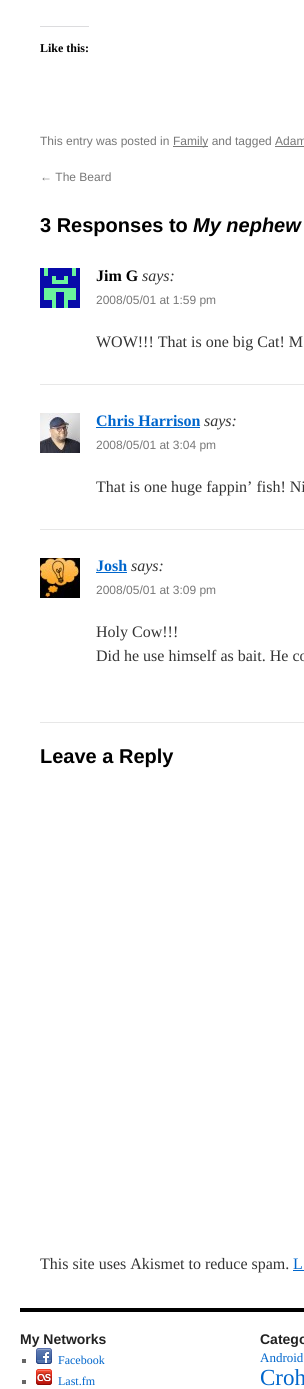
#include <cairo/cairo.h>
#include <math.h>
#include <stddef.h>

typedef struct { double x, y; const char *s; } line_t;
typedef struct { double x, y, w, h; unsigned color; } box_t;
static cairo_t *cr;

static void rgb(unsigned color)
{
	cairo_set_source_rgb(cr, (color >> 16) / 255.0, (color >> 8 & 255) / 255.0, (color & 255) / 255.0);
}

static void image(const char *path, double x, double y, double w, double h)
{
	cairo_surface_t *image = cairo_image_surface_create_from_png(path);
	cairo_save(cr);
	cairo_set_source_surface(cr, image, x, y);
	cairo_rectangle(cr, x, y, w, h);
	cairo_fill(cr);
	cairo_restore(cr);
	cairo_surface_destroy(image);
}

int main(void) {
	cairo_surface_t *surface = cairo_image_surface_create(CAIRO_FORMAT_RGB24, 304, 1389);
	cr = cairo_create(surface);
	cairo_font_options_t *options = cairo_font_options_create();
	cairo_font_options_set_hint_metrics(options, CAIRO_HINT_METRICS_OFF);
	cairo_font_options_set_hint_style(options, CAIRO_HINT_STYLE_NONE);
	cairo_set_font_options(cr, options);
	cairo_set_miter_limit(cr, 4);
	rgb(0xffffff);
	cairo_paint(cr);
	{
		static const box_t items[] = {
			{40, 26, 49, 1, 0xdcdcde},
			{173, 146, 35, 1, 0x777777},
			{275, 146, 29, 1, 0x777777},
			{40, 384, 264, 1, 0xe7e7e7},
		};
		for (size_t i = 0; i < sizeof items / sizeof *items; i++) {
			rgb(items[i].color);
			cairo_rectangle(cr, items[i].x, items[i].y, items[i].w, items[i].h);
			cairo_fill(cr);
		}
	}
	image("img/1.png", 40, 268, 40, 40);
	cairo_rectangle(cr, 40, 529, 264, 1);
	cairo_fill(cr);
	image("img/2.png", 40, 413, 40, 40);
	rgb(0x0066cc);
	cairo_rectangle(cr, 96, 427, 104, 1);
	cairo_fill(cr);
	image("img/3.png", 40, 558, 40, 40);
	{
		static const box_t items[] = {
			{96, 572, 31, 1, 0x0066cc},
			{40, 722, 264, 1, 0xe7e7e7},
			{293, 1270, 11, 1, 0x0066cc},
			{20, 1308, 284, 4, 0x000000},
			{22, 1359, 4, 4, 0x666666},
		};
		for (size_t i = 0; i < sizeof items / sizeof *items; i++) {
			rgb(items[i].color);
			cairo_rectangle(cr, items[i].x, items[i].y, items[i].w, items[i].h);
			cairo_fill(cr);
		}
	}
	image("img/4.png", 36, 1348, 16, 16);
	cairo_rectangle(cr, 22, 1380, 4, 4);
	cairo_fill(cr);
	image("img/5.png", 36, 1369, 16, 16);
	cairo_select_font_face(cr, "Liberation Serif", CAIRO_FONT_SLANT_NORMAL, CAIRO_FONT_WEIGHT_BOLD);
	cairo_set_font_size(cr, 12);
	rgb(0x000000);
	cairo_move_to(cr, 40, 52);
	cairo_show_text(cr, "Like this:");
	cairo_select_font_face(cr, "Liberation Sans", CAIRO_FONT_SLANT_NORMAL, CAIRO_FONT_WEIGHT_NORMAL);
	rgb(0x777777);
	{
		static const line_t items[] = {
			{40, 145, "This entry was posted in"},
			{173, 145, "Family and tagged Adam"},
			{40, 181, "← The Beard"},
		};
		for (size_t i = 0; i < sizeof items / sizeof *items; i++) {
			cairo_move_to(cr, items[i].x, items[i].y);
			cairo_show_text(cr, items[i].s);
		}
	}
	cairo_select_font_face(cr, "Liberation Sans", CAIRO_FONT_SLANT_NORMAL, CAIRO_FONT_WEIGHT_BOLD);
	cairo_set_font_size(cr, 20);
	rgb(0x000000);
	cairo_move_to(cr, 40, 232);
	cairo_show_text(cr, "3 Responses to");
	cairo_select_font_face(cr, "Liberation Sans", CAIRO_FONT_SLANT_ITALIC, CAIRO_FONT_WEIGHT_BOLD);
	cairo_move_to(cr, 193, 232);
	cairo_show_text(cr, "My nephew");
	cairo_select_font_face(cr, "Liberation Serif", CAIRO_FONT_SLANT_NORMAL, CAIRO_FONT_WEIGHT_BOLD);
	cairo_set_font_size(cr, 16);
	cairo_move_to(cr, 96, 281);
	cairo_show_text(cr, "Jim G");
	cairo_select_font_face(cr, "Liberation Serif", CAIRO_FONT_SLANT_ITALIC, CAIRO_FONT_WEIGHT_NORMAL);
	rgb(0x333333);
	cairo_move_to(cr, 142, 281);
	cairo_show_text(cr, "says:");
	cairo_select_font_face(cr, "Liberation Sans", CAIRO_FONT_SLANT_NORMAL, CAIRO_FONT_WEIGHT_NORMAL);
	cairo_set_font_size(cr, 12);
	rgb(0x777777);
	cairo_move_to(cr, 96, 304);
	cairo_show_text(cr, "2008/05/01 at 1:59 pm");
	cairo_select_font_face(cr, "Liberation Serif", CAIRO_FONT_SLANT_NORMAL, CAIRO_FONT_WEIGHT_NORMAL);
	cairo_set_font_size(cr, 16);
	rgb(0x333333);
	cairo_move_to(cr, 96, 347);
	cairo_show_text(cr, "WOW!!! That is one big Cat! M");
	cairo_select_font_face(cr, "Liberation Serif", CAIRO_FONT_SLANT_NORMAL, CAIRO_FONT_WEIGHT_BOLD);
	rgb(0x0066cc);
	cairo_move_to(cr, 96, 426);
	cairo_show_text(cr, "Chris Harrison");
	cairo_select_font_face(cr, "Liberation Serif", CAIRO_FONT_SLANT_ITALIC, CAIRO_FONT_WEIGHT_NORMAL);
	rgb(0x333333);
	cairo_move_to(cr, 204, 426);
	cairo_show_text(cr, "says:");
	cairo_select_font_face(cr, "Liberation Sans", CAIRO_FONT_SLANT_NORMAL, CAIRO_FONT_WEIGHT_NORMAL);
	cairo_set_font_size(cr, 12);
	rgb(0x777777);
	cairo_move_to(cr, 96, 449);
	cairo_show_text(cr, "2008/05/01 at 3:04 pm");
	cairo_select_font_face(cr, "Liberation Serif", CAIRO_FONT_SLANT_NORMAL, CAIRO_FONT_WEIGHT_NORMAL);
	cairo_set_font_size(cr, 16);
	rgb(0x333333);
	cairo_move_to(cr, 96, 492);
	cairo_show_text(cr, "That is one huge fappin’ fish! Ni");
	cairo_select_font_face(cr, "Liberation Serif", CAIRO_FONT_SLANT_NORMAL, CAIRO_FONT_WEIGHT_BOLD);
	rgb(0x0066cc);
	cairo_move_to(cr, 96, 571);
	cairo_show_text(cr, "Josh");
	cairo_select_font_face(cr, "Liberation Serif", CAIRO_FONT_SLANT_ITALIC, CAIRO_FONT_WEIGHT_NORMAL);
	rgb(0x333333);
	cairo_move_to(cr, 131, 571);
	cairo_show_text(cr, "says:");
	cairo_select_font_face(cr, "Liberation Sans", CAIRO_FONT_SLANT_NORMAL, CAIRO_FONT_WEIGHT_NORMAL);
	cairo_set_font_size(cr, 12);
	rgb(0x777777);
	cairo_move_to(cr, 96, 594);
	cairo_show_text(cr, "2008/05/01 at 3:09 pm");
	cairo_select_font_face(cr, "Liberation Serif", CAIRO_FONT_SLANT_NORMAL, CAIRO_FONT_WEIGHT_NORMAL);
	cairo_set_font_size(cr, 16);
	rgb(0x333333);
	cairo_move_to(cr, 96, 637);
	cairo_show_text(cr, "Holy Cow!!!");
	cairo_move_to(cr, 96, 661);
	cairo_show_text(cr, "Did he use himself as bait. He co");
	cairo_select_font_face(cr, "Liberation Sans", CAIRO_FONT_SLANT_NORMAL, CAIRO_FONT_WEIGHT_BOLD);
	cairo_set_font_size(cr, 20);
	rgb(0x000000);
	cairo_move_to(cr, 40, 763);
	cairo_show_text(cr, "Leave a Reply");
	cairo_select_font_face(cr, "Liberation Serif", CAIRO_FONT_SLANT_NORMAL, CAIRO_FONT_WEIGHT_NORMAL);
	cairo_set_font_size(cr, 16);
	rgb(0x333333);
	cairo_move_to(cr, 40, 1269);
	cairo_show_text(cr, "This site uses Akismet to reduce spam.");
	rgb(0x0066cc);
	cairo_move_to(cr, 293, 1269);
	cairo_show_text(cr, "L");
	cairo_select_font_face(cr, "Liberation Sans", CAIRO_FONT_SLANT_NORMAL, CAIRO_FONT_WEIGHT_BOLD);
	cairo_set_font_size(cr, 14);
	rgb(0x222222);
	cairo_move_to(cr, 20, 1344);
	cairo_show_text(cr, "My Networks");
	cairo_select_font_face(cr, "Liberation Serif", CAIRO_FONT_SLANT_NORMAL, CAIRO_FONT_WEIGHT_NORMAL);
	cairo_set_font_size(cr, 12);
	rgb(0x0066cc);
	cairo_move_to(cr, 58, 1364);
	cairo_show_text(cr, "Facebook");
	cairo_move_to(cr, 58, 1385);
	cairo_show_text(cr, "Last.fm");
	cairo_select_font_face(cr, "Liberation Sans", CAIRO_FONT_SLANT_NORMAL, CAIRO_FONT_WEIGHT_BOLD);
	cairo_set_font_size(cr, 14);
	rgb(0x222222);
	cairo_move_to(cr, 260, 1344);
	cairo_show_text(cr, "Catego");
	cairo_select_font_face(cr, "Liberation Serif", CAIRO_FONT_SLANT_NORMAL, CAIRO_FONT_WEIGHT_NORMAL);
	cairo_set_font_size(cr, 13);
	rgb(0x0066cc);
	cairo_move_to(cr, 260, 1362);
	cairo_show_text(cr, "Android");
	cairo_set_font_size(cr, 23);
	cairo_move_to(cr, 260, 1385);
	cairo_show_text(cr, "Croh");
	cairo_surface_write_to_png(surface, "page.png");
	cairo_font_options_destroy(options);
	cairo_destroy(cr);
	cairo_surface_destroy(surface);
	return 0;
}
